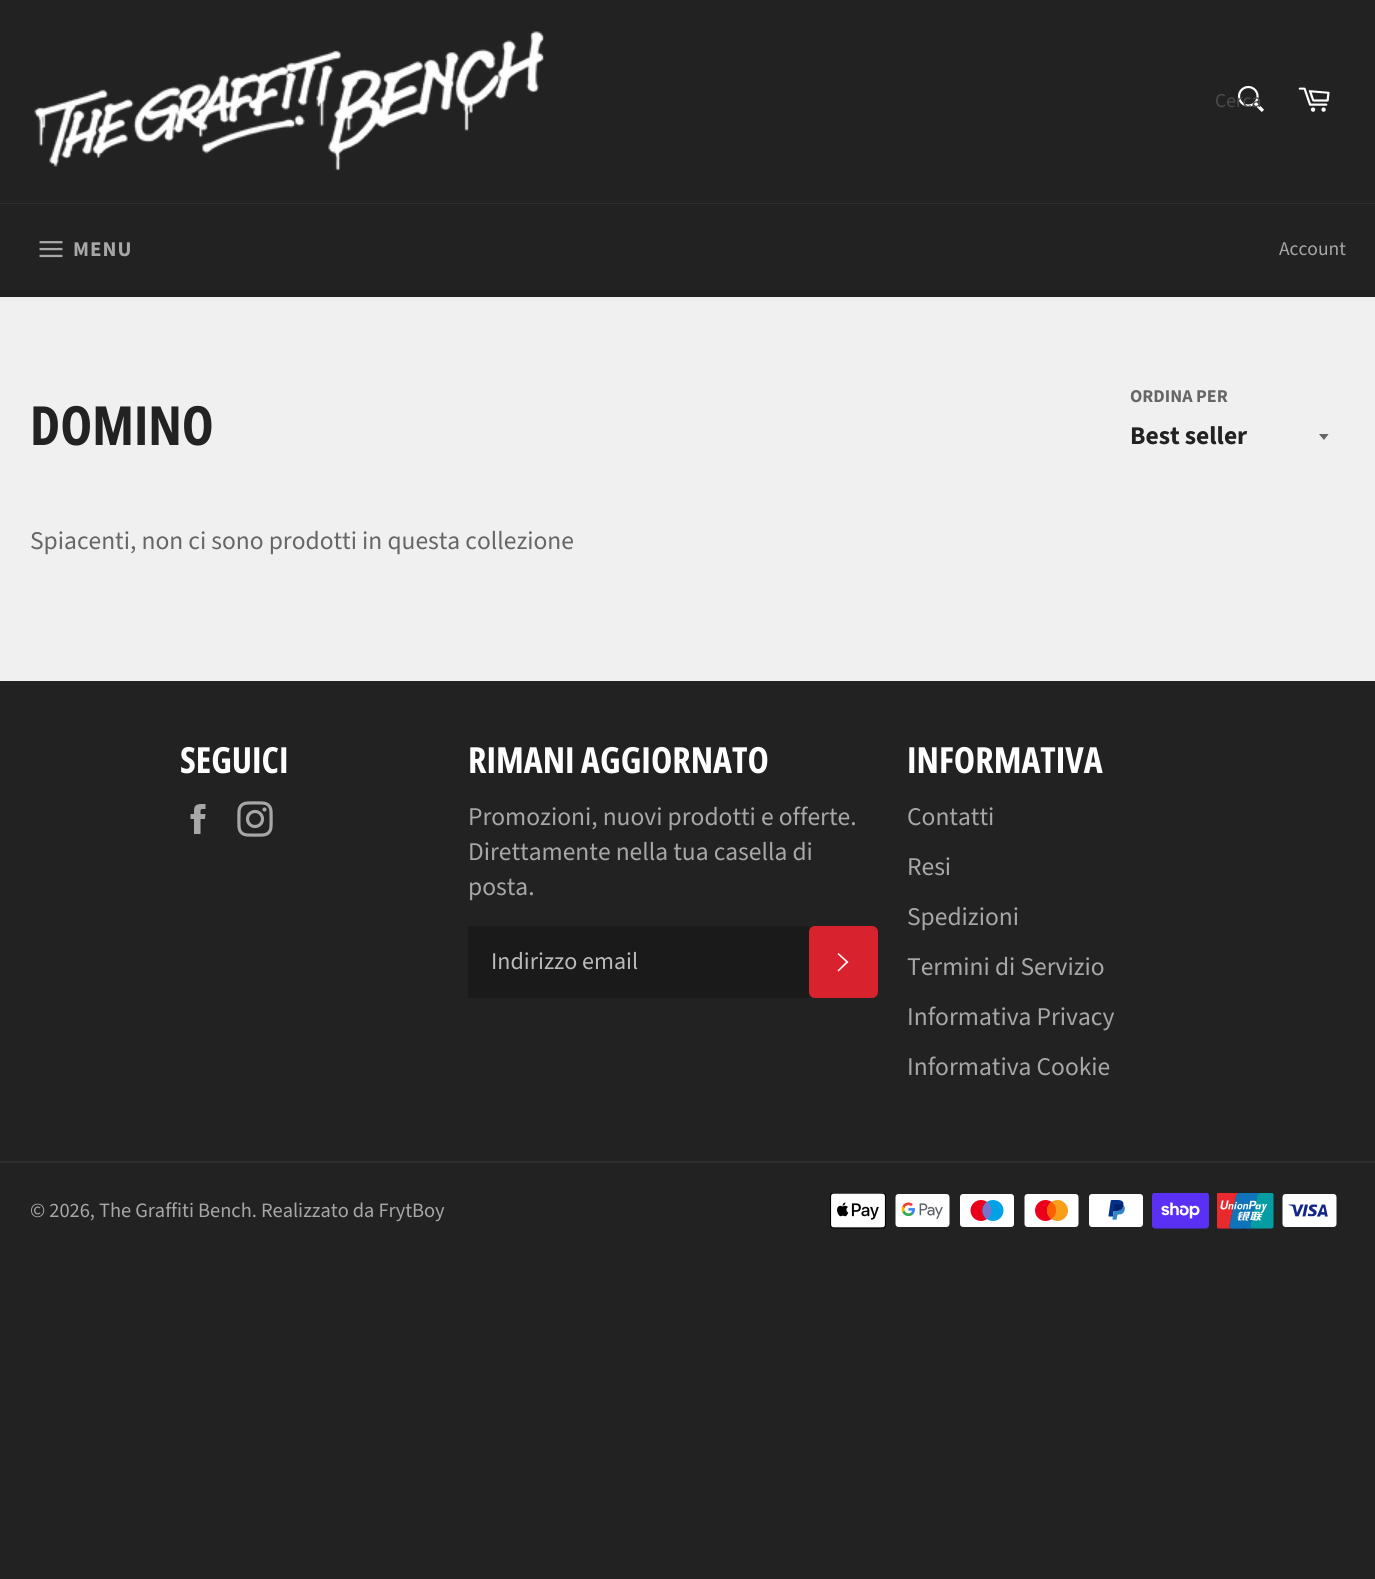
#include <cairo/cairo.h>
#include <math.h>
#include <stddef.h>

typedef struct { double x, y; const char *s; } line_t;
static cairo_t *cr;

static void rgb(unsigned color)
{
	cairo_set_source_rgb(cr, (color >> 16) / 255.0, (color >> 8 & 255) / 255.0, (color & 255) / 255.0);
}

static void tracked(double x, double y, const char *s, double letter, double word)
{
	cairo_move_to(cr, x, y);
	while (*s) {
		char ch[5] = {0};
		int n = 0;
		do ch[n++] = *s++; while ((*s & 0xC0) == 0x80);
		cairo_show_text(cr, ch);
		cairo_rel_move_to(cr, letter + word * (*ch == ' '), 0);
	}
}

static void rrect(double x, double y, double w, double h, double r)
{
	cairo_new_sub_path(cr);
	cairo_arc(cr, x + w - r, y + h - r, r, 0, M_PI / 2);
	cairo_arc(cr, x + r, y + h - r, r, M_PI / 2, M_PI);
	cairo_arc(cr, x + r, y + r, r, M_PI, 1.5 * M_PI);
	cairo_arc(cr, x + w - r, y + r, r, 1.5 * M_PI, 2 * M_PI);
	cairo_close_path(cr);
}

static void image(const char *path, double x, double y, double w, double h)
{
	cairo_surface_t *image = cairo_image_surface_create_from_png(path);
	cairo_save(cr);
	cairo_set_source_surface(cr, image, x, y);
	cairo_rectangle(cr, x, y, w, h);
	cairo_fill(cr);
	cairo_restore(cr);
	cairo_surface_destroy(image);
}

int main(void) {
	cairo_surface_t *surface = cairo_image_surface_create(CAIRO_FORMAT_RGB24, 1375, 1579);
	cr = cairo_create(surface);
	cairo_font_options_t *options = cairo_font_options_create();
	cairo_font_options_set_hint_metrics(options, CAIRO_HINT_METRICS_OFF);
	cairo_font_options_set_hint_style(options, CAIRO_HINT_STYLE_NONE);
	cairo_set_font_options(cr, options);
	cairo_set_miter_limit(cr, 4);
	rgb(0x222222);
	cairo_paint(cr);
	rgb(0xf0f0f0);
	cairo_rectangle(cr, 0, 297, 1375, 384);
	cairo_fill(cr);
	image("img/1.png", 34, 31, 510, 140);
	image("img/2.png", 1237, 85, 27, 27);
	image("img/3.png", 1298, 87, 32, 25);
	rgb(0x2f2f2f);
	cairo_rectangle(cr, 0, 203, 1375, 1);
	cairo_fill(cr);
	image("img/4.png", 39, 241, 24, 17);
	cairo_save(cr);
	cairo_rectangle(cr, 1319, 434, 12, 7);
	cairo_clip(cr);
	rgb(0x666666);
	cairo_new_path(cr);
	cairo_move_to(cr, 1318.5, 433.5);
	cairo_line_to(cr, 1324, 440);
	cairo_line_to(cr, 1329, 433.5);
	cairo_close_path(cr);
	cairo_fill(cr);
	cairo_restore(cr);
	image("img/5.png", 190, 804, 16, 30);
	image("img/6.png", 237, 801, 36, 36);
	rgb(0x1a1a1a);
	cairo_rectangle(cr, 468, 926, 341, 72);
	cairo_fill(cr);
	rgb(0xd8232f);
	rrect(809, 926, 69, 72, 6);
	cairo_fill(cr);
	rgb(0xffffff);
	cairo_new_path(cr);
	cairo_move_to(cr, 837.5, 954);
	cairo_line_to(cr, 838.5, 953);
	cairo_line_to(cr, 848.5, 962);
	cairo_line_to(cr, 838.5, 971.5);
	cairo_line_to(cr, 837.5, 970.5);
	cairo_line_to(cr, 846, 962);
	cairo_close_path(cr);
	cairo_fill(cr);
	rgb(0x2f2f2f);
	cairo_rectangle(cr, 0, 1161, 1375, 2);
	cairo_fill(cr);
	image("img/7.png", 830, 1193, 56, 36);
	image("img/8.png", 895, 1194, 55, 33);
	image("img/9.png", 960, 1194, 54, 33);
	image("img/10.png", 1024, 1194, 55, 33);
	image("img/11.png", 1089, 1194, 54, 33);
	image("img/12.png", 1152, 1193, 57, 36);
	image("img/13.png", 1217, 1193, 57, 36);
	image("img/14.png", 1282, 1194, 55, 33);
	cairo_select_font_face(cr, "Source Sans Pro", CAIRO_FONT_SLANT_NORMAL, CAIRO_FONT_WEIGHT_NORMAL);
	cairo_set_font_size(cr, 19.5);
	rgb(0x4b4b4b);
	cairo_move_to(cr, 1215, 107);
	cairo_show_text(cr, "Cerca");
	cairo_select_font_face(cr, "Source Sans Pro", CAIRO_FONT_SLANT_NORMAL, CAIRO_FONT_WEIGHT_BOLD);
	cairo_set_font_size(cr, 21);
	rgb(0xa7a7a7);
	tracked(73, 256, "MENU", 1, 0);
	cairo_select_font_face(cr, "Source Sans Pro", CAIRO_FONT_SLANT_NORMAL, CAIRO_FONT_WEIGHT_NORMAL);
	cairo_set_font_size(cr, 19.5);
	cairo_move_to(cr, 1279, 255);
	cairo_show_text(cr, "Account");
	cairo_select_font_face(cr, "Open Sans Condensed", CAIRO_FONT_SLANT_NORMAL, CAIRO_FONT_WEIGHT_BOLD);
	cairo_set_font_size(cr, 54);
	rgb(0x222222);
	cairo_move_to(cr, 30, 445);
	cairo_show_text(cr, "DOMINO");
	cairo_select_font_face(cr, "Source Sans Pro", CAIRO_FONT_SLANT_NORMAL, CAIRO_FONT_WEIGHT_BOLD);
	cairo_set_font_size(cr, 18);
	rgb(0x666666);
	cairo_move_to(cr, 1130, 402);
	cairo_show_text(cr, "ORDINA PER");
	cairo_set_font_size(cr, 25.5);
	rgb(0x222222);
	cairo_move_to(cr, 1130, 444);
	cairo_show_text(cr, "Best seller");
	cairo_select_font_face(cr, "Source Sans Pro", CAIRO_FONT_SLANT_NORMAL, CAIRO_FONT_WEIGHT_NORMAL);
	rgb(0x666666);
	cairo_move_to(cr, 30, 549);
	cairo_show_text(cr, "Spiacenti, non ci sono prodotti in questa collezione");
	cairo_select_font_face(cr, "Open Sans Condensed", CAIRO_FONT_SLANT_NORMAL, CAIRO_FONT_WEIGHT_BOLD);
	cairo_set_font_size(cr, 36);
	rgb(0xffffff);
	cairo_move_to(cr, 180, 773);
	cairo_show_text(cr, "SEGUICI");
	cairo_move_to(cr, 468, 773);
	cairo_show_text(cr, "RIMANI AGGIORNATO");
	cairo_select_font_face(cr, "Source Sans Pro", CAIRO_FONT_SLANT_NORMAL, CAIRO_FONT_WEIGHT_NORMAL);
	cairo_set_font_size(cr, 25.5);
	rgb(0xa7a7a7);
	{
		static const line_t items[] = {
			{468, 825, "Promozioni, nuovi prodotti e offerte."},
			{468, 860, "Direttamente nella tua casella di"},
			{468, 895, "posta."},
		};
		for (size_t i = 0; i < sizeof items / sizeof *items; i++) {
			cairo_move_to(cr, items[i].x, items[i].y);
			cairo_show_text(cr, items[i].s);
		}
	}
	cairo_set_font_size(cr, 24);
	rgb(0xbababa);
	cairo_move_to(cr, 491, 969);
	cairo_show_text(cr, "Indirizzo email");
	cairo_select_font_face(cr, "Open Sans Condensed", CAIRO_FONT_SLANT_NORMAL, CAIRO_FONT_WEIGHT_BOLD);
	cairo_set_font_size(cr, 36);
	rgb(0xffffff);
	cairo_move_to(cr, 907, 773);
	cairo_show_text(cr, "INFORMATIVA");
	cairo_select_font_face(cr, "Source Sans Pro", CAIRO_FONT_SLANT_NORMAL, CAIRO_FONT_WEIGHT_NORMAL);
	cairo_set_font_size(cr, 25.5);
	rgb(0xa7a7a7);
	{
		static const line_t items[] = {
			{907, 825, "Contatti"},
			{907, 875, "Resi"},
			{907, 925, "Spedizioni"},
			{907, 975, "Termini di Servizio"},
			{907, 1025, "Informativa Privacy"},
			{907, 1075, "Informativa Cookie"},
		};
		for (size_t i = 0; i < sizeof items / sizeof *items; i++) {
			cairo_move_to(cr, items[i].x, items[i].y);
			cairo_show_text(cr, items[i].s);
		}
	}
	cairo_set_font_size(cr, 20.4);
	cairo_move_to(cr, 30, 1217);
	cairo_show_text(cr, "© 2026, The Graffiti Bench. Realizzato da FrytBoy");
	cairo_surface_write_to_png(surface, "page.png");
	cairo_font_options_destroy(options);
	cairo_destroy(cr);
	cairo_surface_destroy(surface);
	return 0;
}
